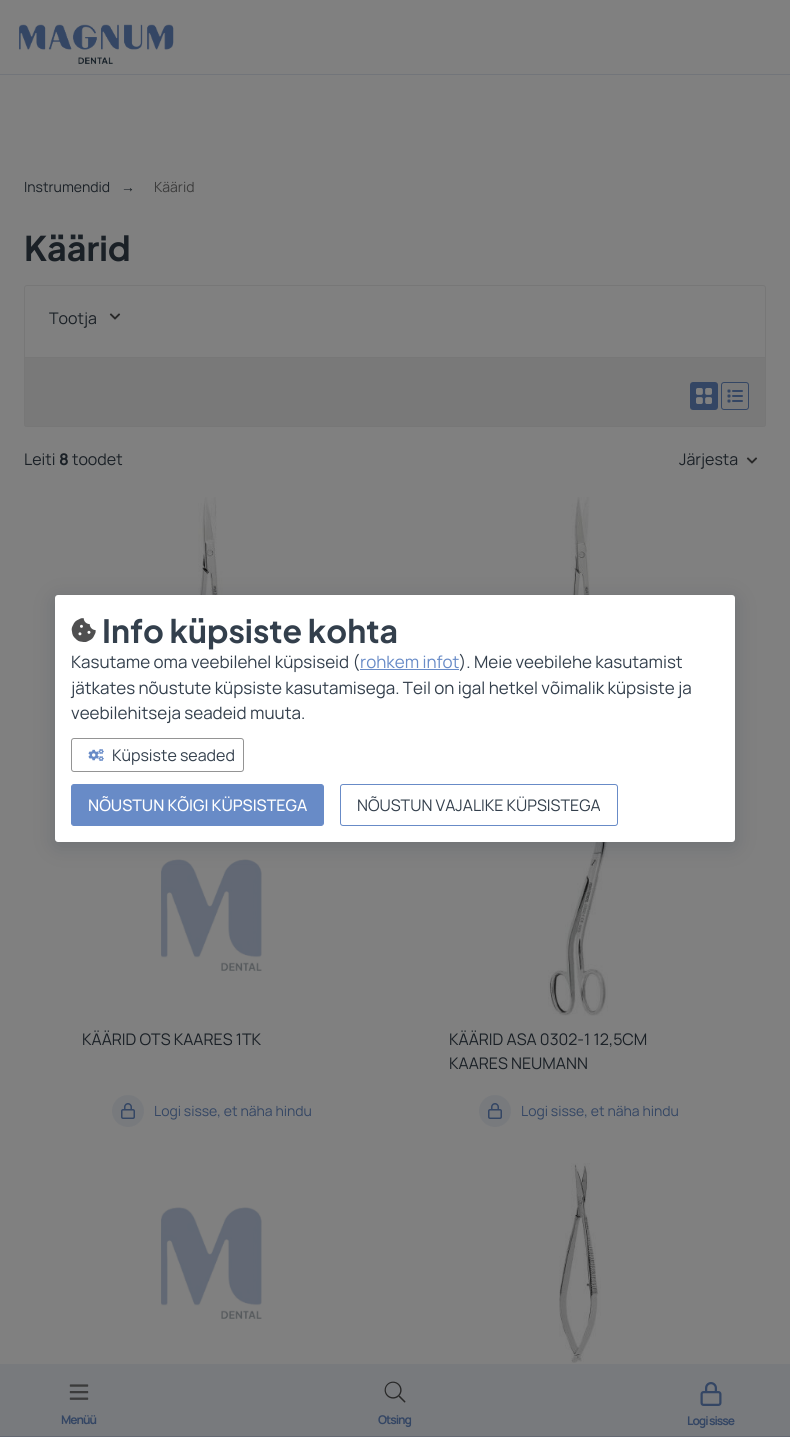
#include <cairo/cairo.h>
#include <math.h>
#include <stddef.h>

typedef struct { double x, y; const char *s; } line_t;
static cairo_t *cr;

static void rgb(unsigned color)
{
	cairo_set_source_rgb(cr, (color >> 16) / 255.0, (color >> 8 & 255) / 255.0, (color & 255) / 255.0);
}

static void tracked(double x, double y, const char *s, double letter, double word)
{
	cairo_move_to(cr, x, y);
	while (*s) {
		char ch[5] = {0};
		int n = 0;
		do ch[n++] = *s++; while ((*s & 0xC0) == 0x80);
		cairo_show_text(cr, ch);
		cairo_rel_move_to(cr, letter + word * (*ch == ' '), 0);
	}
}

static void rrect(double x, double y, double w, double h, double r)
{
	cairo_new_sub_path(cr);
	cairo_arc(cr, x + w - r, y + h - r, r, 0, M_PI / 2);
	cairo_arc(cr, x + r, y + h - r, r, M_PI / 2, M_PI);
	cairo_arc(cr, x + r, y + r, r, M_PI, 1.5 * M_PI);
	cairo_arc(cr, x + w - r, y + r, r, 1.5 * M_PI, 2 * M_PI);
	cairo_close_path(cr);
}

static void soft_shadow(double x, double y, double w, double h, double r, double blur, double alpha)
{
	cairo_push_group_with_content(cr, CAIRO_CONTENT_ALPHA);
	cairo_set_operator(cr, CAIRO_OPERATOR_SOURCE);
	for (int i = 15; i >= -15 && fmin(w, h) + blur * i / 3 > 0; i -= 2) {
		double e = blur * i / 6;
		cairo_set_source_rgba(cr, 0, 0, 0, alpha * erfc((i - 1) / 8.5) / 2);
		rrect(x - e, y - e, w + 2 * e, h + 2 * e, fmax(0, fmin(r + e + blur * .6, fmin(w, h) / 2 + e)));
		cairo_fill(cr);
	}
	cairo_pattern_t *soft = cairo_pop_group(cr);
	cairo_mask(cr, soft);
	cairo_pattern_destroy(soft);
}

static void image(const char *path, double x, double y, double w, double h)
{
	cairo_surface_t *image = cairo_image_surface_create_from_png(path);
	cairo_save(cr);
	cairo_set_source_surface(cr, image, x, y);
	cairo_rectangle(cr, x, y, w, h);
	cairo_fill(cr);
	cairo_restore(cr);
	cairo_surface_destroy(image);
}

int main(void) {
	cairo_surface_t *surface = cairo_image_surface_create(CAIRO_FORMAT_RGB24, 790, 1437);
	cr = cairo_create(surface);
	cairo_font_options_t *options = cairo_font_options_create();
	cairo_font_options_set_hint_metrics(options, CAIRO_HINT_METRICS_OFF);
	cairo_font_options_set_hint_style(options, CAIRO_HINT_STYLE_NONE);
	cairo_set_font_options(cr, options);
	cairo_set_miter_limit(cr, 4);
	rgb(0x808080);
	cairo_paint(cr);
	cairo_new_path(cr);
	cairo_move_to(cr, 27, 285.5);
	cairo_line_to(cr, 763, 285.5);
	cairo_curve_to(cr, 764.5, 285.5, 765.5, 286.5, 765.5, 288);
	cairo_line_to(cr, 765.5, 357.5);
	cairo_line_to(cr, 24.5, 357.5);
	cairo_line_to(cr, 24.5, 288);
	cairo_curve_to(cr, 24.5, 286.5, 25.5, 285.5, 27, 285.5);
	cairo_close_path(cr);
	rgb(0x777777);
	cairo_set_line_width(cr, 1);
	cairo_stroke(cr);
	image("img/1.png", 109, 313, 12, 7);
	rgb(0x797979);
	cairo_new_path(cr);
	cairo_move_to(cr, 24, 358);
	cairo_line_to(cr, 766, 358);
	cairo_line_to(cr, 766, 424);
	cairo_curve_to(cr, 766, 425.5, 764.5, 427, 763, 427);
	cairo_line_to(cr, 27, 427);
	cairo_curve_to(cr, 25.5, 427, 24, 425.5, 24, 424);
	cairo_close_path(cr);
	cairo_fill(cr);
	rgb(0x777777);
	cairo_set_fill_rule(cr, CAIRO_FILL_RULE_EVEN_ODD);
	cairo_new_path(cr);
	cairo_move_to(cr, 24, 358);
	cairo_line_to(cr, 766, 358);
	cairo_line_to(cr, 766, 424);
	cairo_curve_to(cr, 766, 426, 765, 427, 763, 427);
	cairo_line_to(cr, 27, 427);
	cairo_curve_to(cr, 25, 427, 24, 426, 24, 424);
	cairo_close_path(cr);
	cairo_move_to(cr, 25, 358);
	cairo_line_to(cr, 765, 358);
	cairo_line_to(cr, 765, 424);
	cairo_curve_to(cr, 765, 425, 764, 426, 763, 426);
	cairo_line_to(cr, 27, 426);
	cairo_curve_to(cr, 26, 426, 25, 425, 25, 424);
	cairo_close_path(cr);
	cairo_fill(cr);
	rgb(0x344664);
	rrect(690, 382, 28, 28, 3);
	cairo_fill(cr);
	image("img/2.png", 696, 388, 16, 16);
	rrect(721.5, 382.5, 27, 27, 2.5);
	cairo_stroke(cr);
	image("img/3.png", 727, 389, 16, 14);
	image("img/1.png", 746, 457, 12, 7);
	image("img/4.png", 161, 497, 93, 98);
	image("img/5.png", 534, 497, 93, 98);
	image("img/6.png", 161, 859, 101, 112);
	rgb(0x787a7d);
	cairo_arc(cr, 128, 1111, 16, 0, 2 * M_PI);
	cairo_fill(cr);
	image("img/7.png", 121, 1103, 14, 16);
	image("img/8.png", 548, 842, 60, 174);
	cairo_arc(cr, 495, 1111, 16, 0, 2 * M_PI);
	cairo_fill(cr);
	image("img/7.png", 488, 1103, 14, 16);
	image("img/6.png", 161, 1207, 101, 112);
	image("img/9.png", 559, 1163, 42, 200);
	rgb(0x72757a);
	cairo_rectangle(cr, 0, 74, 790, 1);
	cairo_fill(cr);
	image("img/10.png", 19, 24, 155, 40);
	rgb(0x787a7d);
	cairo_rectangle(cr, 0, 1364, 790, 72);
	cairo_fill(cr);
	rgb(0x646872);
	cairo_rectangle(cr, 0, 1436, 790, 1);
	cairo_fill(cr);
	image("img/11.png", 69, 1384, 20, 16);
	image("img/12.png", 384, 1381, 22, 22);
	image("img/13.png", 700, 1382, 22, 24);
	rgb(0x333f4c);
	soft_shadow(55, 599, 680, 247, 3, 10, 0.25);
	rgb(0xffffff);
	rrect(55, 595, 680, 247, 3);
	cairo_fill(cr);
	image("img/14.png", 71, 618, 25, 24);
	rgb(0x688bc7);
	cairo_rectangle(cr, 360, 669, 99, 1);
	cairo_fill(cr);
	rrect(71.5, 738.5, 172, 33, 2.5);
	rgb(0x949494);
	cairo_stroke(cr);
	image("img/15.png", 88, 749, 16, 12);
	rgb(0x688bc7);
	rrect(71.5, 784.5, 252, 41, 2.5);
	cairo_fill_preserve(cr);
	cairo_stroke(cr);
	rrect(340.5, 784.5, 277, 41, 2.5);
	cairo_stroke(cr);
	cairo_select_font_face(cr, "Manrope", CAIRO_FONT_SLANT_NORMAL, CAIRO_FONT_WEIGHT_NORMAL);
	cairo_set_font_size(cr, 14);
	rgb(0x1a2026);
	cairo_move_to(cr, 24, 192);
	cairo_show_text(cr, "Instrumendid");
	cairo_select_font_face(cr, "Liberation Sans", CAIRO_FONT_SLANT_NORMAL, CAIRO_FONT_WEIGHT_NORMAL);
	cairo_move_to(cr, 121, 192);
	cairo_show_text(cr, "→");
	cairo_select_font_face(cr, "Manrope", CAIRO_FONT_SLANT_NORMAL, CAIRO_FONT_WEIGHT_NORMAL);
	rgb(0x3b3b3b);
	cairo_move_to(cr, 154, 192);
	cairo_show_text(cr, "Käärid");
	cairo_select_font_face(cr, "Plus Jakarta Sans", CAIRO_FONT_SLANT_NORMAL, CAIRO_FONT_WEIGHT_BOLD);
	cairo_set_font_size(cr, 34);
	rgb(0x1a2026);
	cairo_move_to(cr, 24, 261);
	cairo_show_text(cr, "Käärid");
	cairo_select_font_face(cr, "Manrope", CAIRO_FONT_SLANT_NORMAL, CAIRO_FONT_WEIGHT_NORMAL);
	cairo_set_font_size(cr, 16);
	cairo_move_to(cr, 49, 324);
	cairo_show_text(cr, "Tootja");
	cairo_move_to(cr, 24, 465);
	cairo_show_text(cr, "Leiti");
	cairo_select_font_face(cr, "Manrope", CAIRO_FONT_SLANT_NORMAL, CAIRO_FONT_WEIGHT_BOLD);
	cairo_move_to(cr, 59, 465);
	cairo_show_text(cr, "8");
	cairo_select_font_face(cr, "Manrope", CAIRO_FONT_SLANT_NORMAL, CAIRO_FONT_WEIGHT_NORMAL);
	{
		static const line_t items[] = {
			{72, 465, "toodet"},
			{679, 465, "Järjesta"},
			{82, 1045, "KÄÄRID OTS KAARES 1TK"},
		};
		for (size_t i = 0; i < sizeof items / sizeof *items; i++) {
			cairo_move_to(cr, items[i].x, items[i].y);
			cairo_show_text(cr, items[i].s);
		}
	}
	cairo_set_font_size(cr, 14);
	rgb(0x344664);
	cairo_move_to(cr, 154, 1116);
	cairo_show_text(cr, "Logi sisse, et näha hindu");
	cairo_set_font_size(cr, 16);
	rgb(0x1a2026);
	cairo_move_to(cr, 449, 1045);
	cairo_show_text(cr, "KÄÄRID ASA 0302-1 12,5CM");
	cairo_move_to(cr, 449, 1069);
	cairo_show_text(cr, "KAARES NEUMANN");
	cairo_set_font_size(cr, 14);
	rgb(0x344664);
	cairo_move_to(cr, 521, 1116);
	cairo_show_text(cr, "Logi sisse, et näha hindu");
	cairo_select_font_face(cr, "Manrope", CAIRO_FONT_SLANT_NORMAL, CAIRO_FONT_WEIGHT_BOLD);
	cairo_set_font_size(cr, 12);
	{
		static const line_t items[] = {
			{61, 1424, "Menüü"},
			{378, 1424, "Otsing"},
			{687, 1425, "Logi sisse"},
		};
		for (size_t i = 0; i < sizeof items / sizeof *items; i++) {
			tracked(items[i].x, items[i].y, items[i].s, -1, 0);
		}
	}
	cairo_select_font_face(cr, "Plus Jakarta Sans", CAIRO_FONT_SLANT_NORMAL, CAIRO_FONT_WEIGHT_BOLD);
	cairo_set_font_size(cr, 32);
	rgb(0x333f4c);
	cairo_move_to(cr, 102, 643);
	cairo_show_text(cr, "Info küpsiste kohta");
	cairo_select_font_face(cr, "Manrope", CAIRO_FONT_SLANT_NORMAL, CAIRO_FONT_WEIGHT_NORMAL);
	cairo_set_font_size(cr, 17);
	cairo_move_to(cr, 71, 668);
	cairo_show_text(cr, "Kasutame oma veebilehel küpsiseid (");
	rgb(0x688bc7);
	cairo_move_to(cr, 360, 668);
	cairo_show_text(cr, "rohkem infot");
	rgb(0x333f4c);
	{
		static const line_t items[] = {
			{459, 668, "). Meie veebilehe kasutamist"},
			{71, 694, "jätkates nõustute küpsiste kasutamisega. Teil on igal hetkel võimalik küpsiste ja"},
			{71, 719, "veebilehitseja seadeid muuta."},
		};
		for (size_t i = 0; i < sizeof items / sizeof *items; i++) {
			cairo_move_to(cr, items[i].x, items[i].y);
			cairo_show_text(cr, items[i].s);
		}
	}
	cairo_set_font_size(cr, 16);
	cairo_move_to(cr, 112, 761);
	cairo_show_text(cr, "Küpsiste seaded");
	cairo_select_font_face(cr, "Manrope Medium", CAIRO_FONT_SLANT_NORMAL, CAIRO_FONT_WEIGHT_NORMAL);
	rgb(0xffffff);
	cairo_move_to(cr, 88, 811);
	cairo_show_text(cr, "NÕUSTUN KÕIGI KÜPSISTEGA");
	cairo_select_font_face(cr, "Manrope", CAIRO_FONT_SLANT_NORMAL, CAIRO_FONT_WEIGHT_NORMAL);
	rgb(0x333f4c);
	cairo_move_to(cr, 357, 811);
	cairo_show_text(cr, "NÕUSTUN VAJALIKE KÜPSISTEGA");
	cairo_surface_write_to_png(surface, "page.png");
	cairo_font_options_destroy(options);
	cairo_destroy(cr);
	cairo_surface_destroy(surface);
	return 0;
}
